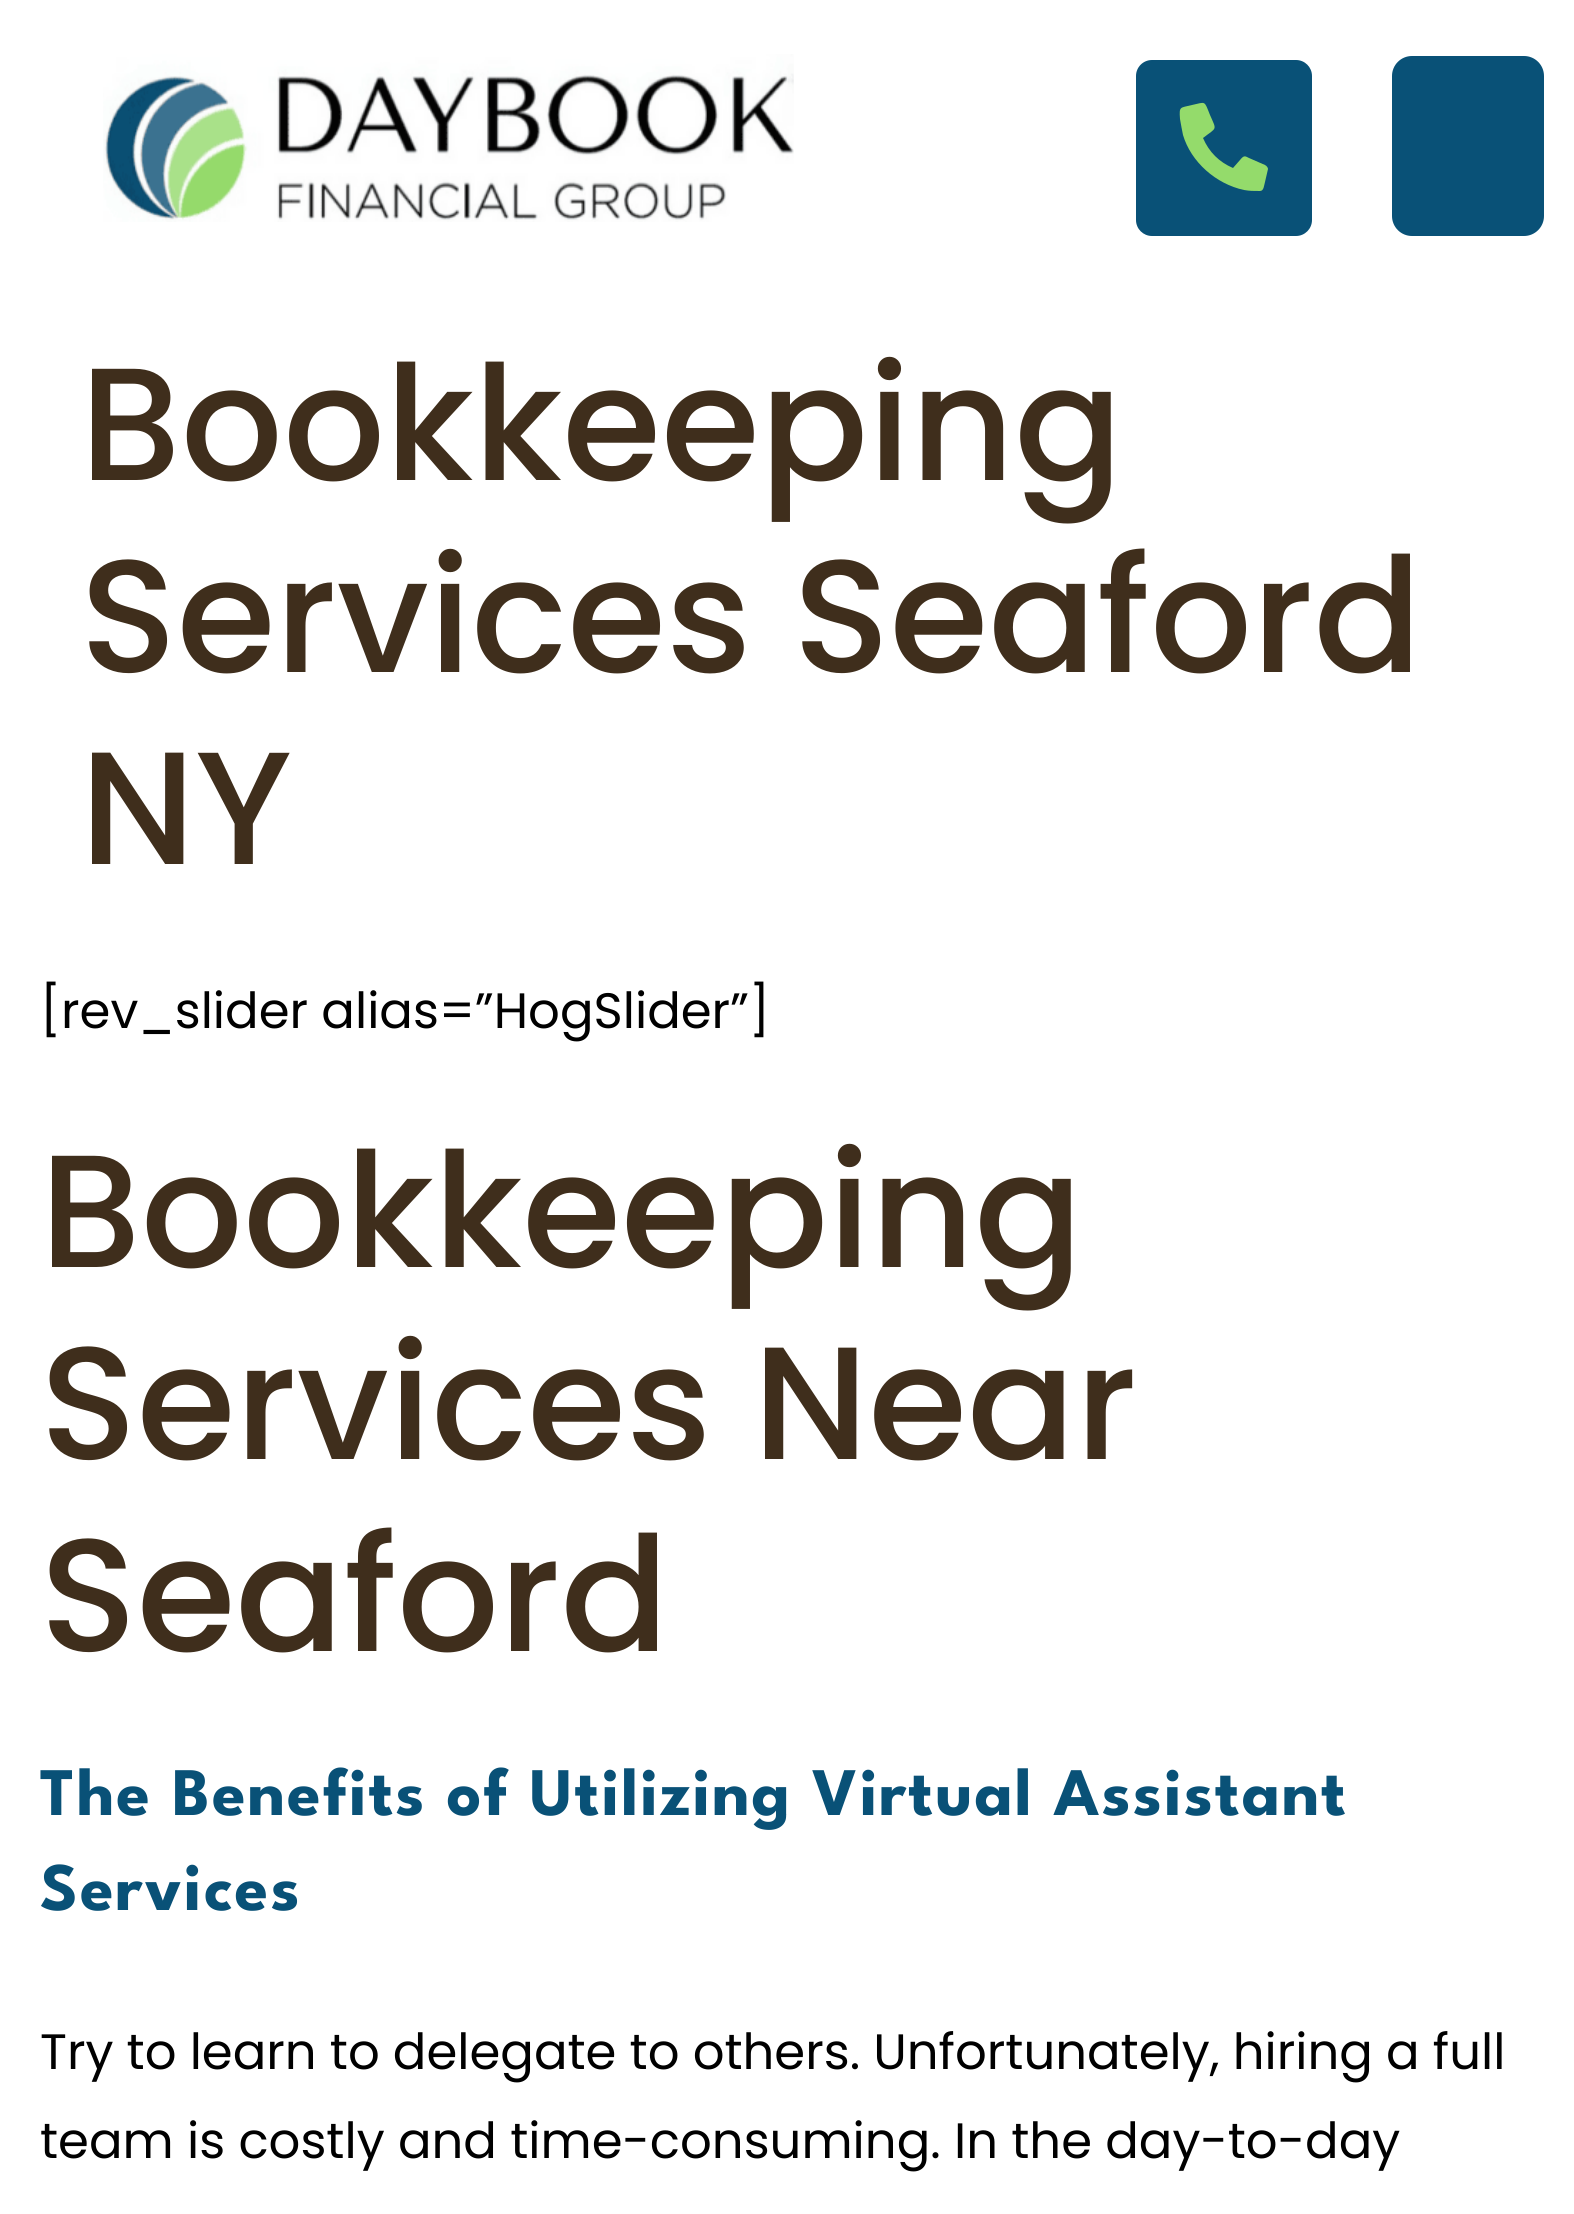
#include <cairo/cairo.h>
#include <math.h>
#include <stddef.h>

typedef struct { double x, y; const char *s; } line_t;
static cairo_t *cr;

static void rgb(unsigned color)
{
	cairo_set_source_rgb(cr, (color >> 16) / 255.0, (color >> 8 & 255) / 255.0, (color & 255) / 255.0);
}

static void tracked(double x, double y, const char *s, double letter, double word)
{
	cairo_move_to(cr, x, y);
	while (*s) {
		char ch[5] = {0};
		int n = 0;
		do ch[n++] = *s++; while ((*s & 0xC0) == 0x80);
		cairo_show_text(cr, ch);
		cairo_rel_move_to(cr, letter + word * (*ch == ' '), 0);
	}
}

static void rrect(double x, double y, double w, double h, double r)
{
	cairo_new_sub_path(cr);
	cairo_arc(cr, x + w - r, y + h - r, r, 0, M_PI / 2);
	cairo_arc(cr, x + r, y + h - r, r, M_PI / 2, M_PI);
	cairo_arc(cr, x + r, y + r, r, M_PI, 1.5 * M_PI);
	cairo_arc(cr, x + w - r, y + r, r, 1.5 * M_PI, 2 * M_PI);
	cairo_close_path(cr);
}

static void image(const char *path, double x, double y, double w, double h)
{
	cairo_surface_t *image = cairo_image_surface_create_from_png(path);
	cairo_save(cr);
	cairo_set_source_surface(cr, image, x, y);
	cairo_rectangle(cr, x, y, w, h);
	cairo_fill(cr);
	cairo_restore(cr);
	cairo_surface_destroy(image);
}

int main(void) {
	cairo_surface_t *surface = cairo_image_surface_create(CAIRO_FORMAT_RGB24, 1574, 2214);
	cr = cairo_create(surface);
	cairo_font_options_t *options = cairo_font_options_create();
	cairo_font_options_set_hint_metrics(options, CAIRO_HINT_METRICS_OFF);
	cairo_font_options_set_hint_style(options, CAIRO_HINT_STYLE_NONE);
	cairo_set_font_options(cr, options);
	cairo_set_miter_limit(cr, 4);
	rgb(0xffffff);
	cairo_paint(cr);
	image("img/1.png", 103, 54, 691, 168);
	rgb(0x095177);
	rrect(1136, 60, 176, 176, 16);
	cairo_fill(cr);
	rgb(0x94db6b);
	cairo_new_path(cr);
	cairo_move_to(cr, 1265, 165);
	cairo_curve_to(cr, 1267, 166, 1268, 168, 1268, 169);
	cairo_line_to(cr, 1265, 182);
	cairo_curve_to(cr, 1264, 185, 1264, 191, 1260, 191);
	cairo_curve_to(cr, 1253, 191, 1250, 191, 1244, 190);
	cairo_curve_to(cr, 1216, 184, 1191, 162, 1183, 135);
	cairo_curve_to(cr, 1182, 130, 1181, 125, 1180, 119);
	cairo_curve_to(cr, 1179, 106, 1180, 108, 1192, 105);
	cairo_curve_to(cr, 1206, 102, 1204, 100, 1210, 115);
	cairo_curve_to(cr, 1217, 131, 1217, 127, 1203, 138);
	cairo_curve_to(cr, 1209, 152, 1219, 162, 1233, 168);
	cairo_line_to(cr, 1240, 160);
	cairo_curve_to(cr, 1244, 155, 1245, 156, 1249, 158);
	cairo_close_path(cr);
	cairo_fill(cr);
	rgb(0x095177);
	rrect(1392, 56, 152, 180, 20);
	cairo_fill(cr);
	cairo_select_font_face(cr, "Poppins Medium", CAIRO_FONT_SLANT_NORMAL, CAIRO_FONT_WEIGHT_NORMAL);
	cairo_set_font_size(cr, 160);
	rgb(0x3f2e1c);
	{
		static const line_t items[] = {
			{80, 480, "Bookkeeping"},
			{80, 672, "Services Seaford"},
			{80, 864, "NY"},
		};
		for (size_t i = 0; i < sizeof items / sizeof *items; i++) {
			cairo_move_to(cr, items[i].x, items[i].y);
			cairo_show_text(cr, items[i].s);
		}
	}
	cairo_select_font_face(cr, "Poppins", CAIRO_FONT_SLANT_NORMAL, CAIRO_FONT_WEIGHT_NORMAL);
	cairo_set_font_size(cr, 49.7);
	rgb(0x000000);
	cairo_move_to(cr, 40, 1028);
	cairo_show_text(cr, "[rev_slider alias=”HogSlider”]");
	cairo_select_font_face(cr, "Poppins Medium", CAIRO_FONT_SLANT_NORMAL, CAIRO_FONT_WEIGHT_NORMAL);
	cairo_set_font_size(cr, 160);
	rgb(0x3f2e1c);
	{
		static const line_t items[] = {
			{40, 1267, "Bookkeeping"},
			{40, 1459, "Services Near"},
			{40, 1651, "Seaford"},
		};
		for (size_t i = 0; i < sizeof items / sizeof *items; i++) {
			cairo_move_to(cr, items[i].x, items[i].y);
			cairo_show_text(cr, items[i].s);
		}
	}
	cairo_select_font_face(cr, "League Spartan", CAIRO_FONT_SLANT_NORMAL, CAIRO_FONT_WEIGHT_BOLD);
	cairo_set_font_size(cr, 67.9);
	rgb(0x095177);
	tracked(40, 1815, "The Benefits of Utilizing Virtual Assistant", 2, 0);
	tracked(40, 1910, "Services", 2, 0);
	cairo_select_font_face(cr, "Poppins", CAIRO_FONT_SLANT_NORMAL, CAIRO_FONT_WEIGHT_NORMAL);
	cairo_set_font_size(cr, 49.7);
	rgb(0x000000);
	tracked(40, 2069, "Try to learn to delegate to others. Unfortunately, hiring a full", 0, -0.1);
	cairo_move_to(cr, 40, 2158);
	cairo_show_text(cr, "team is costly and time-consuming. In the day-to-day");
	cairo_surface_write_to_png(surface, "page.png");
	cairo_font_options_destroy(options);
	cairo_destroy(cr);
	cairo_surface_destroy(surface);
	return 0;
}
